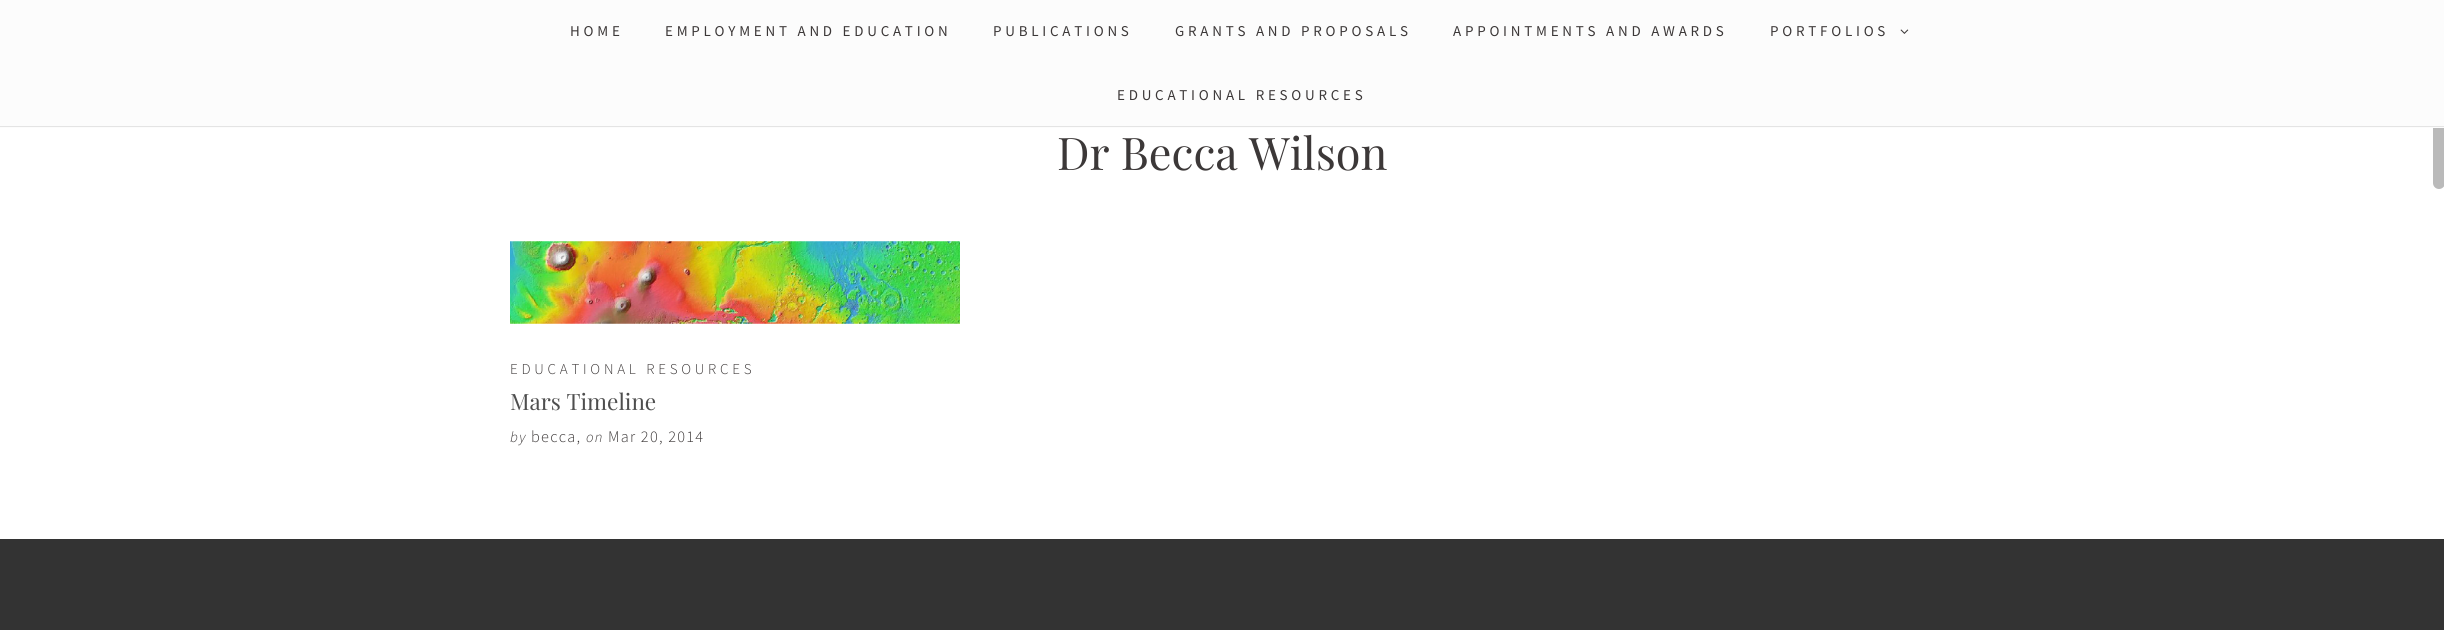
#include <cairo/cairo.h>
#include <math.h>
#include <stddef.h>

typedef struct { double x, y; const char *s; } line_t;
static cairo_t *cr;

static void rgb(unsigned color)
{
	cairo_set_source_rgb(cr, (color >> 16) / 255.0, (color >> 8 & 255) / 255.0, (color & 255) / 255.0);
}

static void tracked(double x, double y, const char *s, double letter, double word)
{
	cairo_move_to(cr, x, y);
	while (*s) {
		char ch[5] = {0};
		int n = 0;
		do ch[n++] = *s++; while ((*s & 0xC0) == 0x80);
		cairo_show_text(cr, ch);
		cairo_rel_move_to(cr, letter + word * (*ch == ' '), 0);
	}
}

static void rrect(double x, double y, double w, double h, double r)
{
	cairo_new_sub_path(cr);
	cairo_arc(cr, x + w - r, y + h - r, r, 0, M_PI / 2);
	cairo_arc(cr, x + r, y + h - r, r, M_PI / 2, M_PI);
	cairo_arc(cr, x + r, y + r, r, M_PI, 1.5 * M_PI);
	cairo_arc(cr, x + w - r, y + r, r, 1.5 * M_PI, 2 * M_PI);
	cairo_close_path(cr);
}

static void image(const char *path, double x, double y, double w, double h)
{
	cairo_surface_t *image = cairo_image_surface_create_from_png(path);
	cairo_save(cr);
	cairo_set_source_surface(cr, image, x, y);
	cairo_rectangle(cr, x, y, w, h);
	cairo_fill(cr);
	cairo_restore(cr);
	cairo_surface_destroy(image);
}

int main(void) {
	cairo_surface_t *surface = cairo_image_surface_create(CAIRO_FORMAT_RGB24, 2444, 630);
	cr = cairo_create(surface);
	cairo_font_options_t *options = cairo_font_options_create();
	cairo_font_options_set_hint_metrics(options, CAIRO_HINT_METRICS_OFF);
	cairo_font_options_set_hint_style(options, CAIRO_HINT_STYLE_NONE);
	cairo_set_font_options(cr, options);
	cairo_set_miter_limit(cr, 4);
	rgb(0xffffff);
	cairo_paint(cr);
	rgb(0xbababa);
	rrect(2433, 0, 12, 189, 6);
	cairo_fill(cr);
	rgb(0xfcfcfc);
	cairo_rectangle(cr, 0, 0, 2444, 128);
	cairo_fill(cr);
	rgb(0xe4e4e4);
	cairo_rectangle(cr, 0, 126, 2444, 1);
	cairo_fill(cr);
	image("img/1.png", 1900, 29, 9, 5);
	image("img/2.png", 510, 241, 450, 83);
	rgb(0x333333);
	cairo_rectangle(cr, 0, 539, 2444, 91);
	cairo_fill(cr);
	cairo_select_font_face(cr, "Source Sans Pro", CAIRO_FONT_SLANT_NORMAL, CAIRO_FONT_WEIGHT_NORMAL);
	cairo_set_font_size(cr, 15);
	rgb(0x3c3838);
	{
		static const line_t items[] = {
			{570, 36, "HOME"},
			{665, 36, "EMPLOYMENT AND EDUCATION"},
			{993, 36, "PUBLICATIONS"},
			{1175, 36, "GRANTS AND PROPOSALS"},
			{1453, 36, "APPOINTMENTS AND AWARDS"},
			{1770, 36, "PORTFOLIOS"},
			{1117, 100, "EDUCATIONAL RESOURCES"},
		};
		for (size_t i = 0; i < sizeof items / sizeof *items; i++) {
			tracked(items[i].x, items[i].y, items[i].s, 3.75, 0);
		}
	}
	cairo_select_font_face(cr, "Playfair Display", CAIRO_FONT_SLANT_NORMAL, CAIRO_FONT_WEIGHT_NORMAL);
	cairo_set_font_size(cr, 45);
	cairo_move_to(cr, 1057, 170);
	cairo_show_text(cr, "Dr Becca Wilson");
	cairo_select_font_face(cr, "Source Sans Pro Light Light", CAIRO_FONT_SLANT_NORMAL, CAIRO_FONT_WEIGHT_NORMAL);
	cairo_set_font_size(cr, 15);
	tracked(510, 374, "EDUCATIONAL RESOURCES", 3.75, 0);
	cairo_select_font_face(cr, "Playfair Display", CAIRO_FONT_SLANT_NORMAL, CAIRO_FONT_WEIGHT_NORMAL);
	cairo_set_font_size(cr, 22.5);
	rgb(0x4e4e4e);
	cairo_move_to(cr, 510, 410);
	cairo_show_text(cr, "Mars Timeline");
	cairo_select_font_face(cr, "Source Sans Pro Light Light", CAIRO_FONT_SLANT_ITALIC, CAIRO_FONT_WEIGHT_NORMAL);
	cairo_set_font_size(cr, 15);
	rgb(0x3c3838);
	tracked(510, 442, "by", 1.25, 0);
	cairo_select_font_face(cr, "Source Sans Pro Light Light", CAIRO_FONT_SLANT_NORMAL, CAIRO_FONT_WEIGHT_NORMAL);
	cairo_set_font_size(cr, 16.25);
	tracked(531, 442, "becca,", 1.25, 0);
	cairo_select_font_face(cr, "Source Sans Pro Light Light", CAIRO_FONT_SLANT_ITALIC, CAIRO_FONT_WEIGHT_NORMAL);
	cairo_set_font_size(cr, 15);
	tracked(586, 442, "on", 1.25, 0);
	cairo_select_font_face(cr, "Source Sans Pro Light Light", CAIRO_FONT_SLANT_NORMAL, CAIRO_FONT_WEIGHT_NORMAL);
	cairo_set_font_size(cr, 16.25);
	tracked(608, 442, "Mar 20, 2014", 1.25, 0);
	cairo_surface_write_to_png(surface, "page.png");
	cairo_font_options_destroy(options);
	cairo_destroy(cr);
	cairo_surface_destroy(surface);
	return 0;
}
